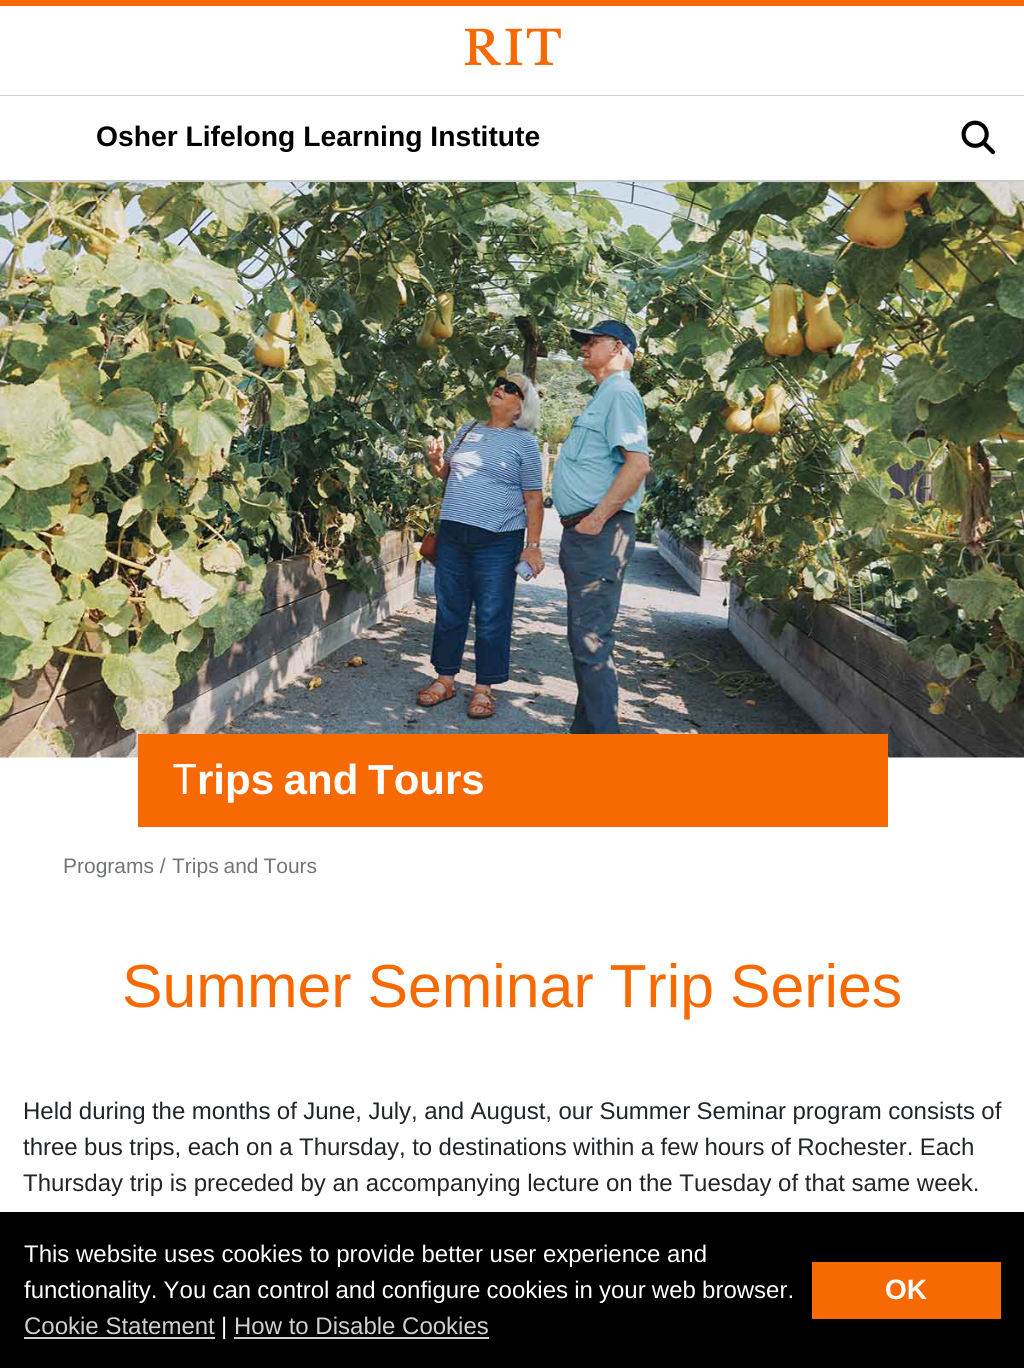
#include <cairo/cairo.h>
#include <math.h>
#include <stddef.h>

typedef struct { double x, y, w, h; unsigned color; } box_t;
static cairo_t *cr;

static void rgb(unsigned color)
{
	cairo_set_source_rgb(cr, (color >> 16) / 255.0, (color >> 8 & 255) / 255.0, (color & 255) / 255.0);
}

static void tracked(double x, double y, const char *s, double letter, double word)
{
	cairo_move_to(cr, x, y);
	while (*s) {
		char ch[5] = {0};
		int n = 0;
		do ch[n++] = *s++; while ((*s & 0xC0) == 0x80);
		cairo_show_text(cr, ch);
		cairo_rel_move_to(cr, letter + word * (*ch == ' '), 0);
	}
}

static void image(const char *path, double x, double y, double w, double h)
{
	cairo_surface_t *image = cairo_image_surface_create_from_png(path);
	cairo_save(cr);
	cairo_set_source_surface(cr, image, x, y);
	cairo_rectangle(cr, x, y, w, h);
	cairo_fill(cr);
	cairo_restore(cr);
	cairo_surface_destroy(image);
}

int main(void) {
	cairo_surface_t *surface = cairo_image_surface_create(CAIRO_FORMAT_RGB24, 1024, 1368);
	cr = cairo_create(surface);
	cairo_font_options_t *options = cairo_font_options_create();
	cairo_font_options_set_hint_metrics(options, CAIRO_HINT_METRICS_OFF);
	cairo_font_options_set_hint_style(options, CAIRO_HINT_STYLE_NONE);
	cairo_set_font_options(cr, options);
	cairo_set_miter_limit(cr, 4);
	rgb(0xffffff);
	cairo_paint(cr);
	rgb(0xf76902);
	cairo_rectangle(cr, 0, 0, 1024, 6);
	cairo_fill(cr);
	rgb(0xcccccc);
	cairo_rectangle(cr, 0, 95, 1024, 1);
	cairo_fill(cr);
	image("img/1.png", 465, 28, 96, 38);
	cairo_rectangle(cr, 0, 180, 1024, 2);
	cairo_fill(cr);
	image("img/2.png", 961, 120, 35, 35);
	image("img/3.png", 0, 182, 1024, 576);
	{
		static const box_t items[] = {
			{138, 734, 750, 93, 0xf76902},
			{0, 1212, 1024, 156, 0x000000},
			{24, 1337, 191, 2, 0xd0d0d0},
			{234, 1337, 255, 2, 0xd0d0d0},
			{812, 1262, 189, 57, 0xf76902},
		};
		for (size_t i = 0; i < sizeof items / sizeof *items; i++) {
			rgb(items[i].color);
			cairo_rectangle(cr, items[i].x, items[i].y, items[i].w, items[i].h);
			cairo_fill(cr);
		}
	}
	cairo_select_font_face(cr, "Liberation Sans", CAIRO_FONT_SLANT_NORMAL, CAIRO_FONT_WEIGHT_BOLD);
	cairo_set_font_size(cr, 28.25);
	rgb(0x000000);
	cairo_move_to(cr, 96, 146);
	cairo_show_text(cr, "Osher Lifelong Learning Institute");
	cairo_select_font_face(cr, "Noto Sans", CAIRO_FONT_SLANT_NORMAL, CAIRO_FONT_WEIGHT_NORMAL);
	cairo_set_font_size(cr, 42);
	rgb(0xffffff);
	cairo_move_to(cr, 173, 794);
	cairo_show_text(cr, "T");
	cairo_select_font_face(cr, "Liberation Sans", CAIRO_FONT_SLANT_NORMAL, CAIRO_FONT_WEIGHT_BOLD);
	tracked(197, 794, "rips and Tours", 0, -2);
	cairo_select_font_face(cr, "Liberation Sans", CAIRO_FONT_SLANT_NORMAL, CAIRO_FONT_WEIGHT_NORMAL);
	cairo_set_font_size(cr, 21);
	rgb(0x727578);
	cairo_move_to(cr, 63, 873);
	cairo_show_text(cr, "Programs /");
	tracked(172, 873, "Trips and Tours", 0, -1);
	cairo_set_font_size(cr, 60.75);
	rgb(0xf76902);
	tracked(122, 1007, "Summer Seminar Trip Series", 0, -1);
	cairo_set_font_size(cr, 24);
	rgb(0x212529);
	tracked(23, 1119, "Held during the months of June, July, and August, our Summer Seminar program consists of", 0, -0.25);
	tracked(23, 1155, "three bus trips, each on a Thursday, to destinations within a few hours of Rochester. Each", 0, -0.25);
	cairo_move_to(cr, 23, 1191);
	cairo_show_text(cr, "Thursday trip is preceded by an accompanying lecture on the Tuesday of that same week.");
	rgb(0xffffff);
	cairo_move_to(cr, 24, 1262);
	cairo_show_text(cr, "This website uses cookies to provide better user experience and");
	tracked(24, 1298, "functionality. You can control and configure cookies in your web browser.", 0, -0.5);
	rgb(0xd0d0d0);
	cairo_move_to(cr, 24, 1334);
	cairo_show_text(cr, "Cookie Statement");
	rgb(0xffffff);
	cairo_move_to(cr, 221, 1334);
	cairo_show_text(cr, "|");
	rgb(0xd0d0d0);
	cairo_move_to(cr, 234, 1334);
	cairo_show_text(cr, "How to Disable Cookies");
	cairo_select_font_face(cr, "Liberation Sans", CAIRO_FONT_SLANT_NORMAL, CAIRO_FONT_WEIGHT_BOLD);
	cairo_set_font_size(cr, 28);
	rgb(0xffffff);
	cairo_move_to(cr, 885, 1299);
	cairo_show_text(cr, "OK");
	cairo_surface_write_to_png(surface, "page.png");
	cairo_font_options_destroy(options);
	cairo_destroy(cr);
	cairo_surface_destroy(surface);
	return 0;
}
